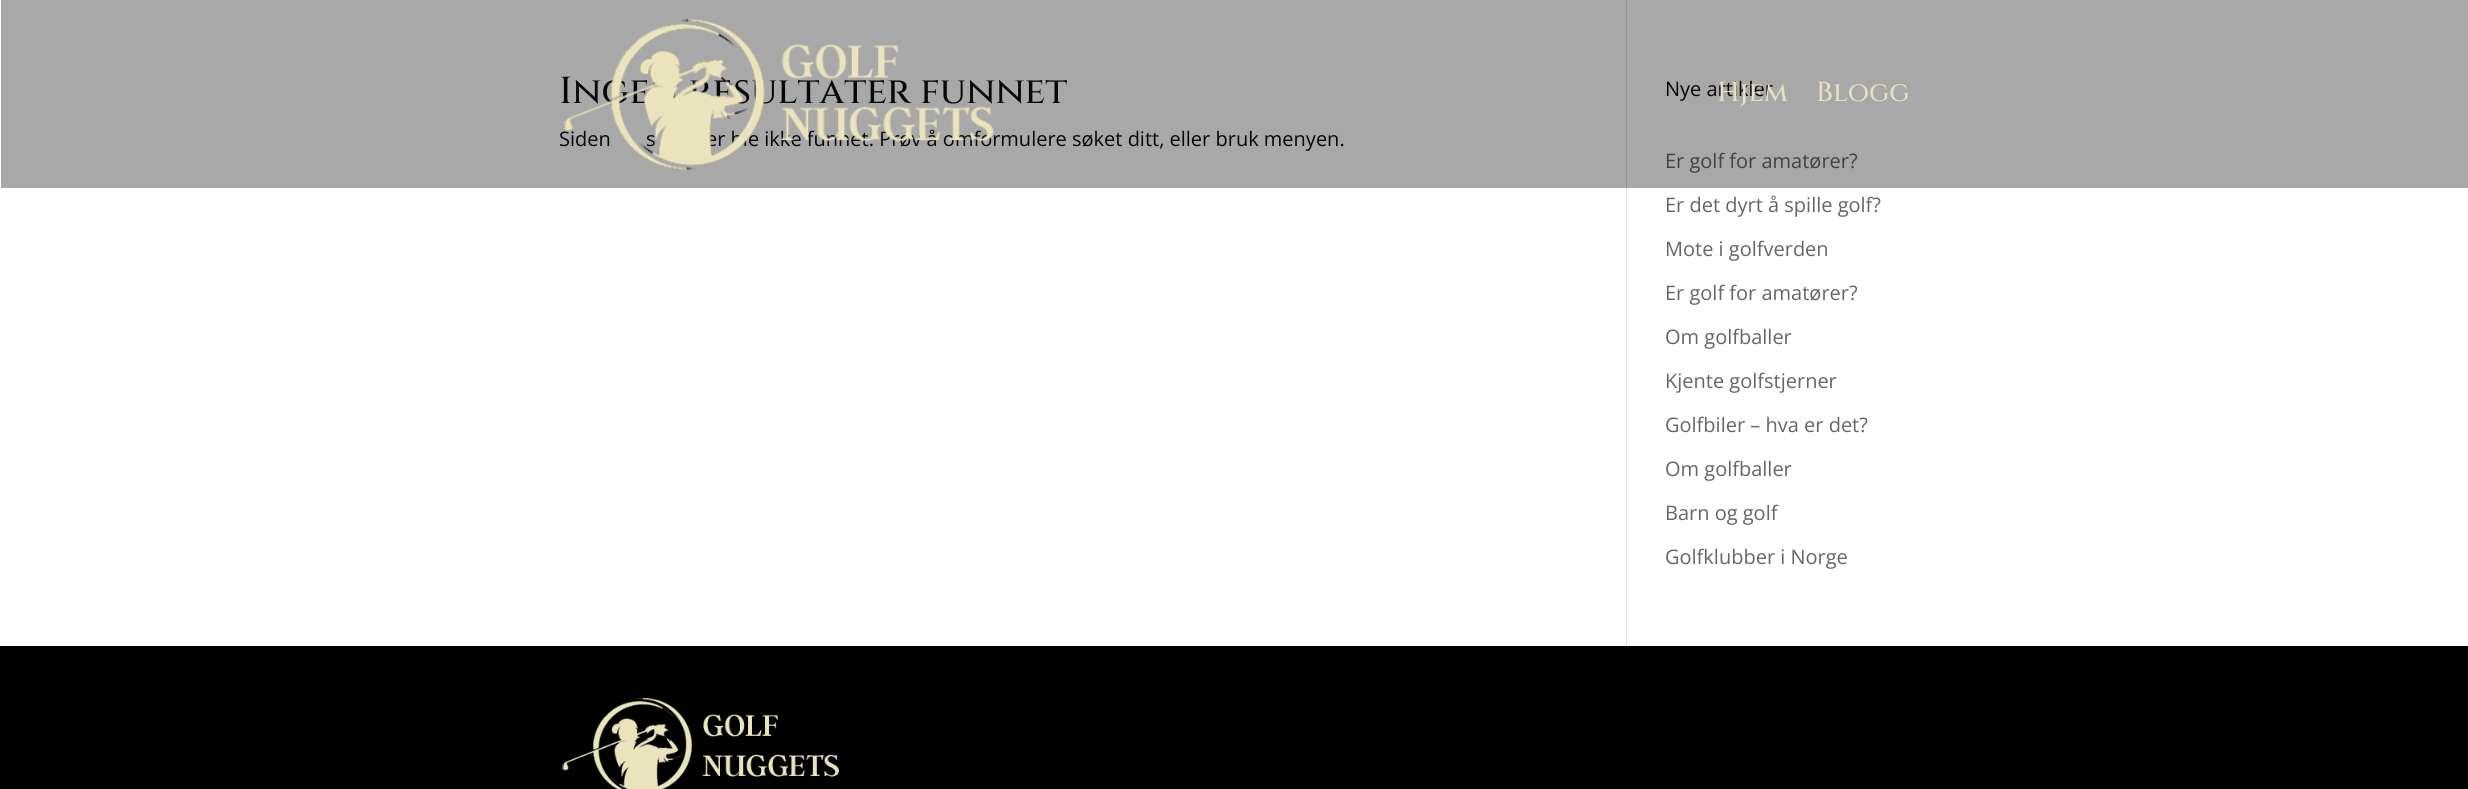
#include <cairo/cairo.h>
#include <math.h>
#include <stddef.h>

typedef struct { double x, y; const char *s; } line_t;
typedef struct { double x, y, w, h; unsigned color; } box_t;
static cairo_t *cr;

static void rgb(unsigned color)
{
	cairo_set_source_rgb(cr, (color >> 16) / 255.0, (color >> 8 & 255) / 255.0, (color & 255) / 255.0);
}

static void image(const char *path, double x, double y, double w, double h)
{
	cairo_surface_t *image = cairo_image_surface_create_from_png(path);
	cairo_save(cr);
	cairo_set_source_surface(cr, image, x, y);
	cairo_rectangle(cr, x, y, w, h);
	cairo_fill(cr);
	cairo_restore(cr);
	cairo_surface_destroy(image);
}

int main(void) {
	cairo_surface_t *surface = cairo_image_surface_create(CAIRO_FORMAT_RGB24, 2468, 789);
	cr = cairo_create(surface);
	cairo_font_options_t *options = cairo_font_options_create();
	cairo_font_options_set_hint_metrics(options, CAIRO_HINT_METRICS_OFF);
	cairo_font_options_set_hint_style(options, CAIRO_HINT_STYLE_NONE);
	cairo_set_font_options(cr, options);
	cairo_set_miter_limit(cr, 4);
	rgb(0xffffff);
	cairo_paint(cr);
	{
		static const box_t items[] = {
			{1, 0, 2467, 188, 0xa8a8a8},
			{1626, 188, 1, 458, 0xe2e2e2},
			{1626, 0, 1, 188, 0x959595},
			{0, 646, 2468, 143, 0x000000},
		};
		for (size_t i = 0; i < sizeof items / sizeof *items; i++) {
			rgb(items[i].color);
			cairo_rectangle(cr, items[i].x, items[i].y, items[i].w, items[i].h);
			cairo_fill(cr);
		}
	}
	image("img/1.png", 562, 698, 277, 91);
	cairo_select_font_face(cr, "Cinzel Medium", CAIRO_FONT_SLANT_NORMAL, CAIRO_FONT_WEIGHT_NORMAL);
	cairo_set_font_size(cr, 37.5);
	rgb(0x070707);
	cairo_move_to(cr, 559, 103);
	cairo_show_text(cr, "Ingen resultater funnet");
	cairo_select_font_face(cr, "Open Sans", CAIRO_FONT_SLANT_NORMAL, CAIRO_FONT_WEIGHT_NORMAL);
	cairo_set_font_size(cr, 20);
	{
		static const line_t items[] = {
			{559, 146, "Siden"},
			{646, 146, "s"},
			{706, 146, "er ble ikke funnet. Prøv å omformulere søket ditt, eller bruk menyen."},
			{1665, 96, "Nye artikler"},
		};
		for (size_t i = 0; i < sizeof items / sizeof *items; i++) {
			cairo_move_to(cr, items[i].x, items[i].y);
			cairo_show_text(cr, items[i].s);
		}
	}
	rgb(0x434343);
	cairo_move_to(cr, 1665, 168);
	cairo_show_text(cr, "Er golf for amatører?");
	rgb(0x666666);
	{
		static const line_t items[] = {
			{1665, 212, "Er det dyrt å spille golf?"},
			{1665, 256, "Mote i golfverden"},
			{1665, 300, "Er golf for amatører?"},
			{1665, 344, "Om golfballer"},
			{1665, 388, "Kjente golfstjerner"},
			{1665, 432, "Golfbiler – hva er det?"},
			{1665, 476, "Om golfballer"},
			{1665, 520, "Barn og golf"},
			{1665, 564, "Golfklubber i Norge"},
		};
		for (size_t i = 0; i < sizeof items / sizeof *items; i++) {
			cairo_move_to(cr, items[i].x, items[i].y);
			cairo_show_text(cr, items[i].s);
		}
	}
	image("img/2.png", 563, 18, 431, 153);
	cairo_select_font_face(cr, "Cinzel Medium", CAIRO_FONT_SLANT_NORMAL, CAIRO_FONT_WEIGHT_NORMAL);
	cairo_set_font_size(cr, 27.5);
	rgb(0xe7e2bc);
	cairo_move_to(cr, 1717, 101);
	cairo_show_text(cr, "Hjem");
	cairo_move_to(cr, 1816, 101);
	cairo_show_text(cr, "Blogg");
	cairo_surface_write_to_png(surface, "page.png");
	cairo_font_options_destroy(options);
	cairo_destroy(cr);
	cairo_surface_destroy(surface);
	return 0;
}
